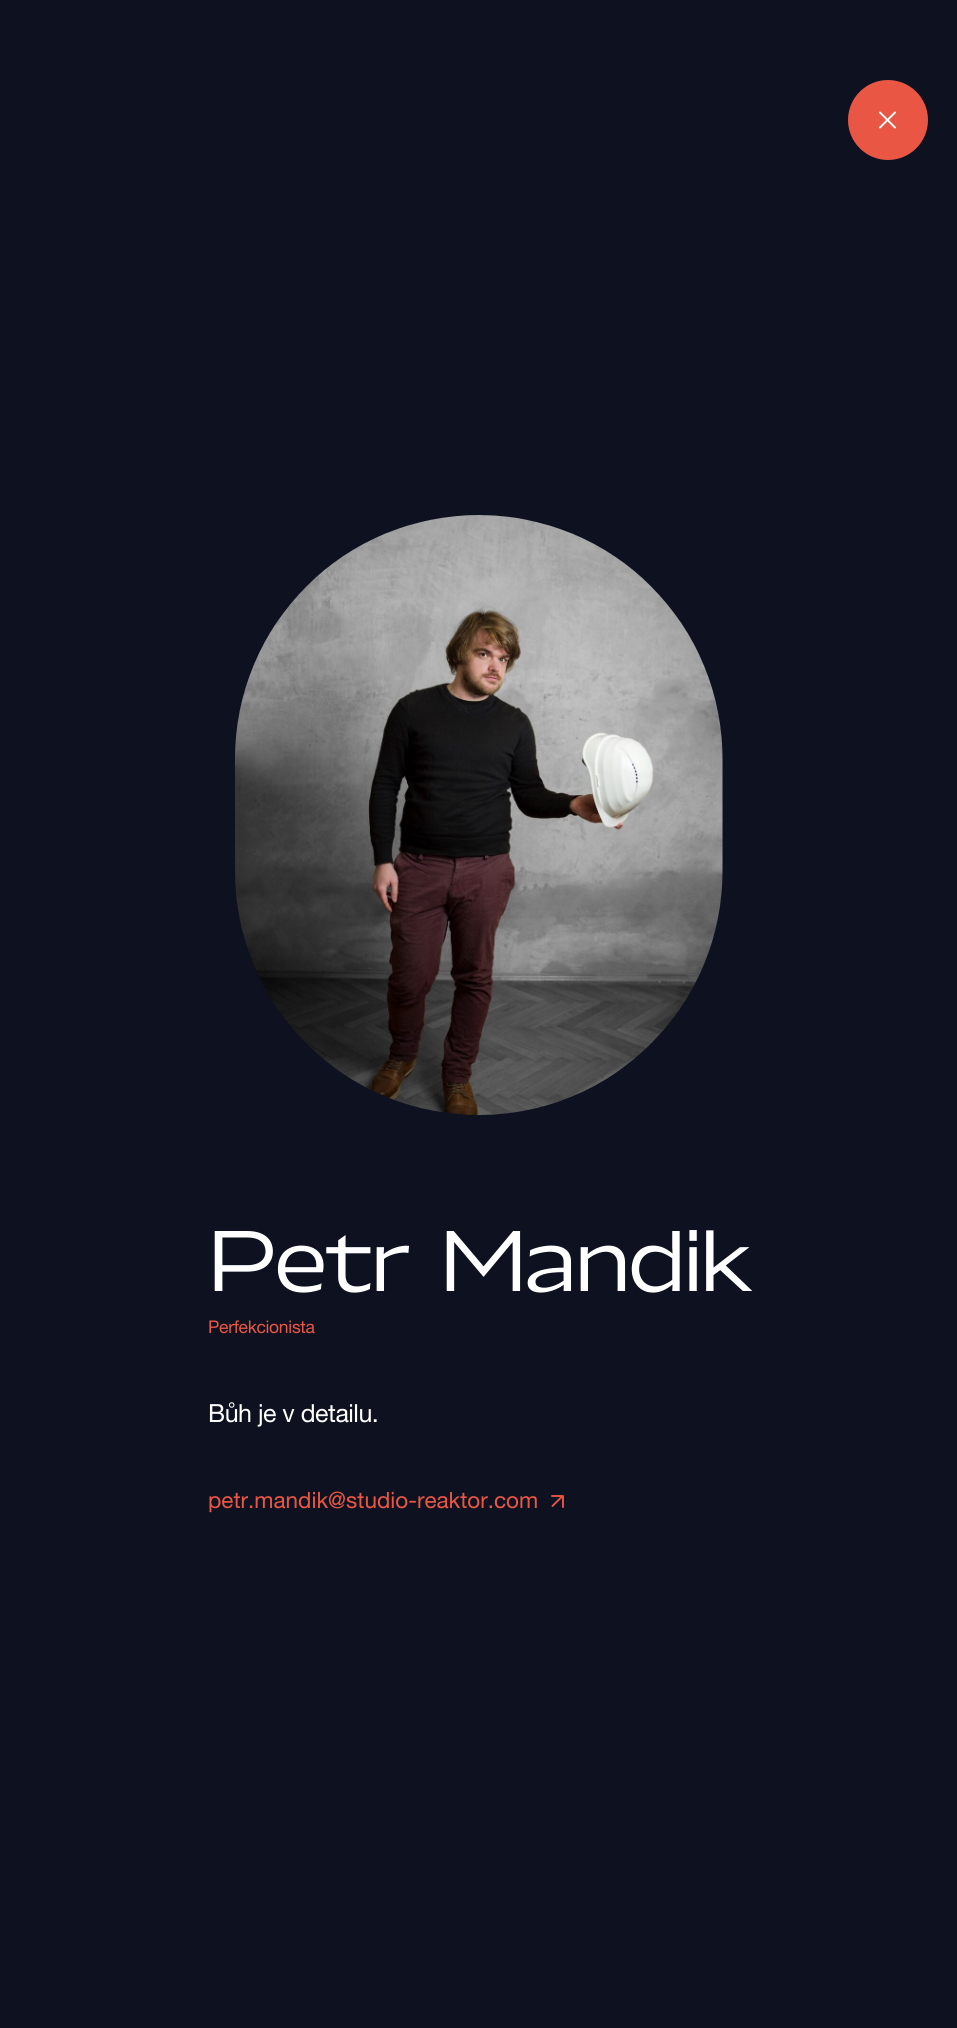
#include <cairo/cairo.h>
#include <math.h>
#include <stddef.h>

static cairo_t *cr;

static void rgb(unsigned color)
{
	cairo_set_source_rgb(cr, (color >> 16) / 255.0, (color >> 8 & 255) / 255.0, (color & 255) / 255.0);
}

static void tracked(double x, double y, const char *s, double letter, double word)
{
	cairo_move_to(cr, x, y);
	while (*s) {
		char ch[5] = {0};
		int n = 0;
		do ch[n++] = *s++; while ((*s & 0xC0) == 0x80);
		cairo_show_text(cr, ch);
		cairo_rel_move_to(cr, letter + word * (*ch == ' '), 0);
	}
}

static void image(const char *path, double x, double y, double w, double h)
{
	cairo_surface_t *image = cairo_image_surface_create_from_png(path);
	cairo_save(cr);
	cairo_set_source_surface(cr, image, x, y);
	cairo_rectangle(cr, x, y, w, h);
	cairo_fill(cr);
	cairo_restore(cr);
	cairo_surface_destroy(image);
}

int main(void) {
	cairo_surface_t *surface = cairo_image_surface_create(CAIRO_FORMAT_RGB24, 957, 2028);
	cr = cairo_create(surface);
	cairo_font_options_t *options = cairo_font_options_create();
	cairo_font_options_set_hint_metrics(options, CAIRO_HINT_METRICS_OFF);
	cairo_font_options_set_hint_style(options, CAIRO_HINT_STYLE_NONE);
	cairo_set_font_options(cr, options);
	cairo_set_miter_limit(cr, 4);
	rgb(0x0e1120);
	cairo_paint(cr);
	rgb(0xe95644);
	cairo_arc(cr, 888, 120, 40, 0, 2 * M_PI);
	cairo_fill(cr);
	cairo_new_path(cr);
	cairo_move_to(cr, 895, 127.5);
	cairo_line_to(cr, 880, 112.5);
	cairo_move_to(cr, 880, 127.5);
	cairo_line_to(cr, 895, 112.5);
	rgb(0xffffff);
	cairo_set_line_width(cr, 1.9);
	cairo_set_line_cap(cr, CAIRO_LINE_CAP_ROUND);
	cairo_set_line_join(cr, CAIRO_LINE_JOIN_ROUND);
	cairo_stroke(cr);
	image("img/1.png", 235, 515, 488, 600);
	cairo_new_path(cr);
	cairo_move_to(cr, 552.5, 1506);
	cairo_line_to(cr, 562.5, 1496);
	cairo_move_to(cr, 552, 1496);
	cairo_line_to(cr, 563, 1496);
	cairo_line_to(cr, 563, 1507);
	rgb(0xe95644);
	cairo_stroke(cr);
	cairo_select_font_face(cr, "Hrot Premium", CAIRO_FONT_SLANT_NORMAL, CAIRO_FONT_WEIGHT_NORMAL);
	cairo_set_font_size(cr, 80);
	rgb(0xffffff);
	tracked(208, 1291, "Petr Mandik", -3.25, 0);
	cairo_select_font_face(cr, "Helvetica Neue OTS", CAIRO_FONT_SLANT_NORMAL, CAIRO_FONT_WEIGHT_NORMAL);
	cairo_set_font_size(cr, 17.5);
	rgb(0xe95644);
	tracked(208, 1333, "Perfekcionista", -0.3, 0);
	cairo_set_font_size(cr, 25);
	rgb(0xffffff);
	tracked(208, 1422, "Bůh je v detailu.", -0.5, 0);
	cairo_set_font_size(cr, 22.5);
	rgb(0xe95644);
	cairo_move_to(cr, 208, 1508);
	cairo_show_text(cr, "petr.mandik@studio-reaktor.com");
	cairo_surface_write_to_png(surface, "page.png");
	cairo_font_options_destroy(options);
	cairo_destroy(cr);
	cairo_surface_destroy(surface);
	return 0;
}
